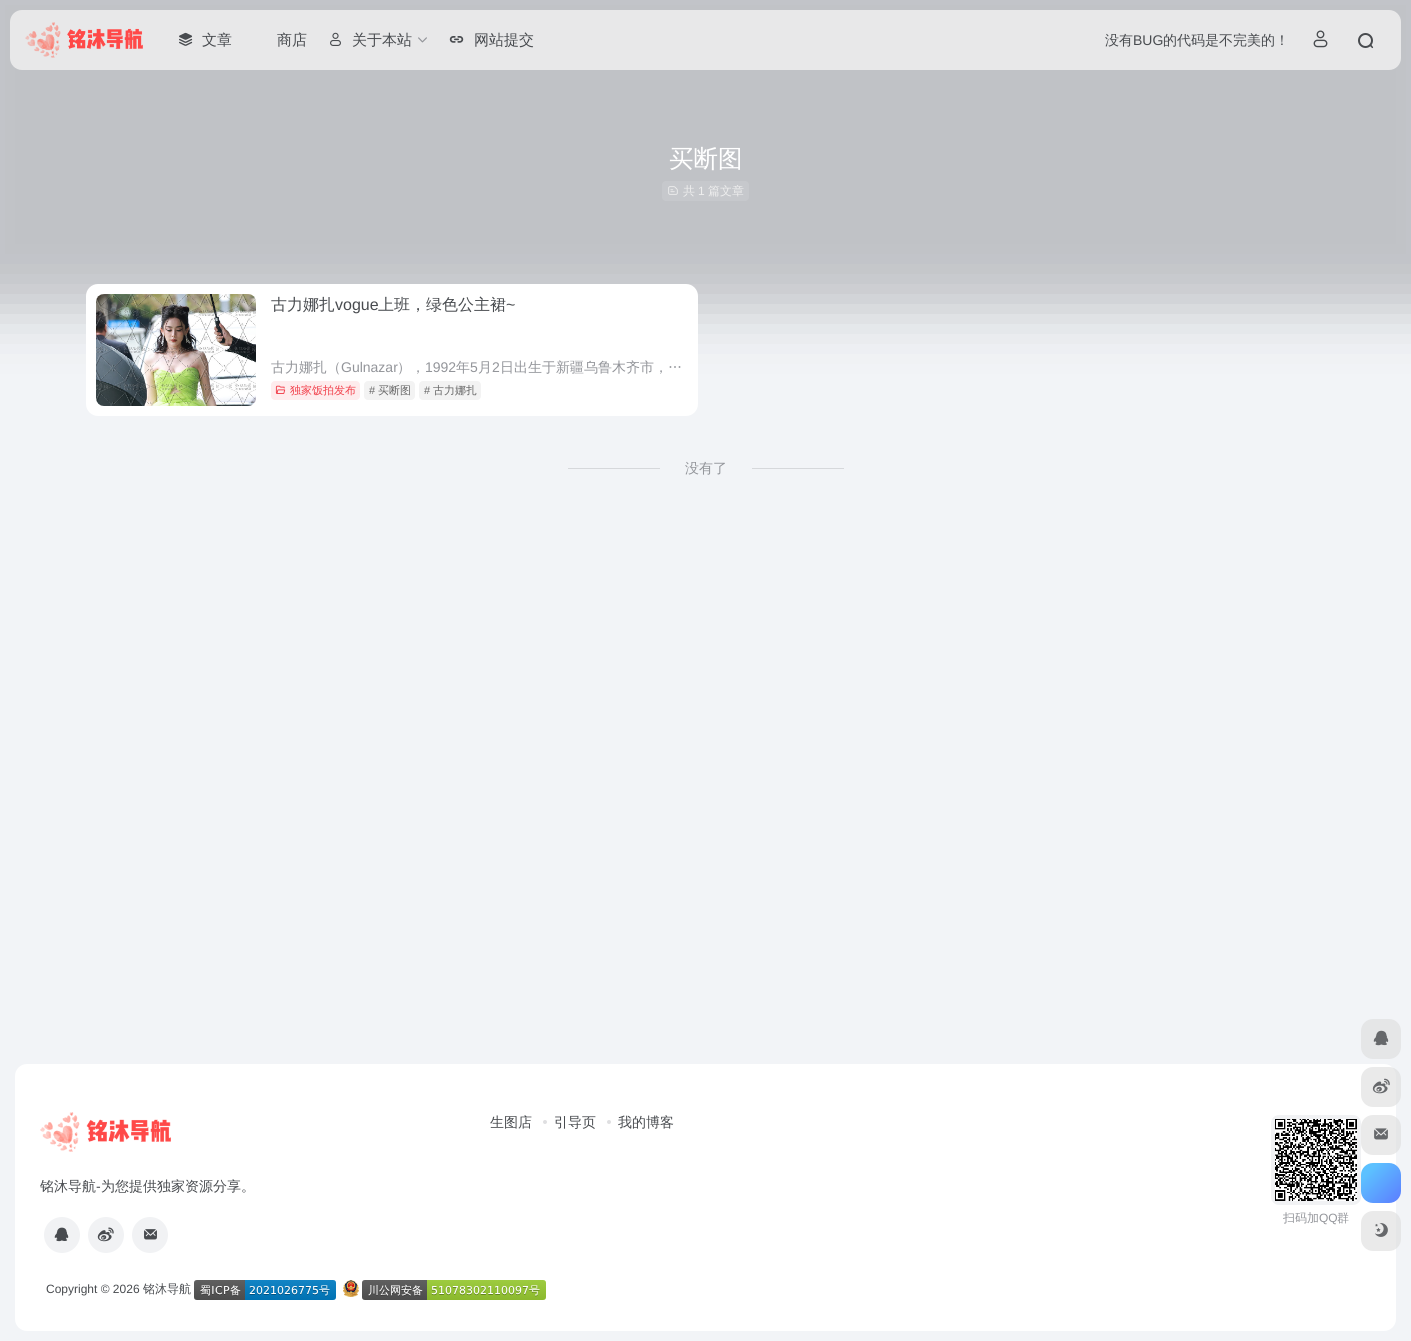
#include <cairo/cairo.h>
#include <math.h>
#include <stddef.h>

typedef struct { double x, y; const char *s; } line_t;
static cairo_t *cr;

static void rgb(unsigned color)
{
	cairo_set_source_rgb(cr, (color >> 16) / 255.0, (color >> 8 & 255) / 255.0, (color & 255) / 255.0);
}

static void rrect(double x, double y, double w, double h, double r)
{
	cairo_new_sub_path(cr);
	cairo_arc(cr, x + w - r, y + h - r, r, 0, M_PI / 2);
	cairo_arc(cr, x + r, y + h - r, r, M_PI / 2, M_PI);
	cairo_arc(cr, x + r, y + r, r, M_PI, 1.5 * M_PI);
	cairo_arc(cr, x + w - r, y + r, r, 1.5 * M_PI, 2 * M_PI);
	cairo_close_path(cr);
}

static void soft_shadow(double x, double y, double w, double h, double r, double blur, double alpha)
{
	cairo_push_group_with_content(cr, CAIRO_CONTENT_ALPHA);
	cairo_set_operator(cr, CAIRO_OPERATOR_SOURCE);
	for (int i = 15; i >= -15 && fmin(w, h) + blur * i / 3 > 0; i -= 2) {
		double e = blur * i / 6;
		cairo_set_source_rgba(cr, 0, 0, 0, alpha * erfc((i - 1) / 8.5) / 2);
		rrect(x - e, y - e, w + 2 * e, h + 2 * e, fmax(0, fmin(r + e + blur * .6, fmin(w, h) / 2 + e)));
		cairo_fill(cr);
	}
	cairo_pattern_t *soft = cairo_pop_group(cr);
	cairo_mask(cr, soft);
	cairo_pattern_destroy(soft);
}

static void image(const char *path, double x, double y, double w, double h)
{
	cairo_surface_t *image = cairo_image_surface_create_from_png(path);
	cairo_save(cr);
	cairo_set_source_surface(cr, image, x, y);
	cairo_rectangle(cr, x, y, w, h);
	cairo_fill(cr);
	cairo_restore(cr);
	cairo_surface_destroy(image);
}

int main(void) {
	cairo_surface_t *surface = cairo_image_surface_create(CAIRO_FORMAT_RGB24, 1411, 1341);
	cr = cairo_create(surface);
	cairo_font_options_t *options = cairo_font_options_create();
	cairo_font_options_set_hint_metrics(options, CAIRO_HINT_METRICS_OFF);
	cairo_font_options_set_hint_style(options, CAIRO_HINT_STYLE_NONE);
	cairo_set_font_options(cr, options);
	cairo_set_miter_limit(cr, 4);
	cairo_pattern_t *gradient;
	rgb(0xf2f4f7);
	cairo_paint(cr);
	rgb(0xc0c2c6);
	soft_shadow(-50, -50, 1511, 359, 0, 30, 1);
	rgb(0xe8e8e9);
	rrect(10, 10, 1391, 60, 12);
	cairo_fill(cr);
	image("img/1.png", 25, 22, 118, 36);
	image("img/2.png", 179, 32, 14, 14);
	image("img/3.png", 330, 32, 11, 14);
	image("img/4.png", 418, 37, 9, 6);
	image("img/5.png", 449, 36, 15, 7);
	image("img/6.png", 1313, 30, 15, 18);
	cairo_arc(cr, 1365.5, 40.5, 6.5, 0, 2 * M_PI);
	rgb(0x484b4f);
	cairo_stroke(cr);
	cairo_new_path(cr);
	cairo_move_to(cr, 1371.5, 45);
	cairo_line_to(cr, 1373, 47);
	cairo_curve_to(cr, 1373.5, 47.5, 1372.5, 48.5, 1372, 48);
	cairo_line_to(cr, 1371, 47);
	cairo_curve_to(cr, 1369, 45.5, 1370.5, 44, 1371.5, 45);
	cairo_close_path(cr);
	cairo_fill(cr);
	rgb(0xc6c8cc);
	rrect(662, 181, 87, 20, 4);
	cairo_fill(cr);
	image("img/7.png", 668, 186, 10, 9);
	rgb(0xffffff);
	rrect(86, 284, 612, 132, 12);
	cairo_fill(cr);
	rgb(0xf1f1f1);
	rrect(96, 294, 160, 112, 8);
	cairo_fill(cr);
	image("img/8.png", 96, 294, 160, 112);
	rgb(0xfeeced);
	rrect(271, 381, 89, 19, 4);
	cairo_fill(cr);
	image("img/9.png", 275, 385, 11, 9);
	rgb(0xf3f3f3);
	rrect(364, 381, 51, 19, 4);
	cairo_fill(cr);
	rrect(419, 381, 62, 19, 4);
	cairo_fill(cr);
	rgb(0xd6d8db);
	cairo_rectangle(cr, 568, 468, 92, 1);
	cairo_fill(cr);
	cairo_rectangle(cr, 752, 468, 92, 1);
	cairo_fill(cr);
	rgb(0xffffff);
	rrect(15, 1064, 1381, 267, 12);
	cairo_fill(cr);
	rgb(0xdfdfe1);
	cairo_arc(cr, 545, 1122, 2, 0, 2 * M_PI);
	cairo_fill(cr);
	cairo_arc(cr, 609, 1122, 2, 0, 2 * M_PI);
	cairo_fill(cr);
	image("img/10.png", 40, 1112, 131, 40);
	rgb(0xf1f2f4);
	cairo_arc(cr, 62, 1235, 18, 0, 2 * M_PI);
	cairo_fill(cr);
	image("img/11.png", 54, 1227, 15, 15);
	cairo_arc(cr, 106, 1235, 18, 0, 2 * M_PI);
	cairo_fill(cr);
	image("img/12.png", 97, 1227, 17, 15);
	cairo_arc(cr, 150, 1235, 18, 0, 2 * M_PI);
	cairo_fill(cr);
	image("img/13.png", 144, 1229, 13, 11);
	rrect(1271, 1115, 90, 90, 8);
	cairo_fill(cr);
	image("img/14.png", 1275, 1119, 82, 82);
	image("img/15.png", 194, 1280, 142, 20);
	image("img/16.png", 343, 1280, 16, 17);
	image("img/17.png", 362, 1280, 184, 20);
	rgb(0xe5e6e7);
	rrect(1361, 1019, 40, 40, 12);
	cairo_fill(cr);
	image("img/18.png", 1373, 1030, 16, 16);
	cairo_set_source_rgba(cr, 0.863, 0.863, 0.863, 0.6);
	rrect(1361, 1067, 40, 40, 12);
	cairo_fill(cr);
	image("img/19.png", 1372, 1078, 18, 16);
	rrect(1361, 1115, 40, 40, 12);
	cairo_fill(cr);
	image("img/20.png", 1374, 1128, 14, 12);
	gradient = cairo_pattern_create_linear(1361, 1163, 1401, 1203);
	cairo_pattern_add_color_stop_rgba(gradient, 0.2, 0.361, 0.757, 1, 1);
	cairo_pattern_add_color_stop_rgba(gradient, 1, 0.361, 0.486, 1, 1);
	cairo_set_source(cr, gradient);
	cairo_pattern_destroy(gradient);
	rrect(1361, 1163, 40, 40, 12);
	cairo_fill(cr);
	cairo_set_source_rgba(cr, 0.863, 0.863, 0.863, 0.6);
	rrect(1361, 1211, 40, 40, 12);
	cairo_fill(cr);
	image("img/21.png", 1375, 1223, 13, 14);
	cairo_select_font_face(cr, "WenQuanYi Zen Hei Medium", CAIRO_FONT_SLANT_NORMAL, CAIRO_FONT_WEIGHT_NORMAL);
	cairo_set_font_size(cr, 15);
	rgb(0x484b4f);
	{
		static const line_t items[] = {
			{202, 45, "文章"},
			{277, 45, "商店"},
			{352, 45, "关于本站"},
			{474, 45, "网站提交"},
		};
		for (size_t i = 0; i < sizeof items / sizeof *items; i++) {
			cairo_move_to(cr, items[i].x, items[i].y);
			cairo_show_text(cr, items[i].s);
		}
	}
	cairo_set_font_size(cr, 14);
	cairo_move_to(cr, 1105, 45);
	cairo_show_text(cr, "没有");
	cairo_select_font_face(cr, "Liberation Sans", CAIRO_FONT_SLANT_NORMAL, CAIRO_FONT_WEIGHT_NORMAL);
	cairo_move_to(cr, 1133, 45);
	cairo_show_text(cr, "BUG");
	cairo_select_font_face(cr, "WenQuanYi Zen Hei Medium", CAIRO_FONT_SLANT_NORMAL, CAIRO_FONT_WEIGHT_NORMAL);
	cairo_move_to(cr, 1163, 45);
	cairo_show_text(cr, "的代码是不完美的！");
	cairo_set_font_size(cr, 24.5);
	rgb(0xffffff);
	cairo_move_to(cr, 669, 167);
	cairo_show_text(cr, "买断图");
	cairo_set_font_size(cr, 12);
	rgb(0xeeeeee);
	cairo_move_to(cr, 683, 195);
	cairo_show_text(cr, "共");
	cairo_select_font_face(cr, "Liberation Sans", CAIRO_FONT_SLANT_NORMAL, CAIRO_FONT_WEIGHT_NORMAL);
	cairo_move_to(cr, 698, 195);
	cairo_show_text(cr, "1");
	cairo_select_font_face(cr, "WenQuanYi Zen Hei Medium", CAIRO_FONT_SLANT_NORMAL, CAIRO_FONT_WEIGHT_NORMAL);
	cairo_move_to(cr, 708, 195);
	cairo_show_text(cr, "篇文章");
	cairo_set_font_size(cr, 16);
	rgb(0x484b4f);
	cairo_move_to(cr, 271, 310);
	cairo_show_text(cr, "古力娜扎");
	cairo_select_font_face(cr, "Liberation Sans", CAIRO_FONT_SLANT_NORMAL, CAIRO_FONT_WEIGHT_NORMAL);
	cairo_move_to(cr, 335, 310);
	cairo_show_text(cr, "vogue");
	cairo_select_font_face(cr, "WenQuanYi Zen Hei Medium", CAIRO_FONT_SLANT_NORMAL, CAIRO_FONT_WEIGHT_NORMAL);
	cairo_move_to(cr, 378, 310);
	cairo_show_text(cr, "上班，绿色公主裙");
	cairo_select_font_face(cr, "Liberation Sans", CAIRO_FONT_SLANT_NORMAL, CAIRO_FONT_WEIGHT_NORMAL);
	cairo_move_to(cr, 506, 310);
	cairo_show_text(cr, "~");
	cairo_select_font_face(cr, "WenQuanYi Zen Hei Medium", CAIRO_FONT_SLANT_NORMAL, CAIRO_FONT_WEIGHT_NORMAL);
	cairo_set_font_size(cr, 14);
	rgb(0x93959a);
	cairo_move_to(cr, 271, 372);
	cairo_show_text(cr, "古力娜扎（");
	cairo_select_font_face(cr, "Liberation Sans", CAIRO_FONT_SLANT_NORMAL, CAIRO_FONT_WEIGHT_NORMAL);
	cairo_move_to(cr, 341, 372);
	cairo_show_text(cr, "Gulnazar");
	cairo_select_font_face(cr, "WenQuanYi Zen Hei Medium", CAIRO_FONT_SLANT_NORMAL, CAIRO_FONT_WEIGHT_NORMAL);
	cairo_move_to(cr, 397, 372);
	cairo_show_text(cr, "），");
	cairo_select_font_face(cr, "Liberation Sans", CAIRO_FONT_SLANT_NORMAL, CAIRO_FONT_WEIGHT_NORMAL);
	cairo_move_to(cr, 425, 372);
	cairo_show_text(cr, "1992");
	cairo_select_font_face(cr, "WenQuanYi Zen Hei Medium", CAIRO_FONT_SLANT_NORMAL, CAIRO_FONT_WEIGHT_NORMAL);
	cairo_move_to(cr, 456, 372);
	cairo_show_text(cr, "年");
	cairo_select_font_face(cr, "Liberation Sans", CAIRO_FONT_SLANT_NORMAL, CAIRO_FONT_WEIGHT_NORMAL);
	cairo_move_to(cr, 470, 372);
	cairo_show_text(cr, "5");
	cairo_select_font_face(cr, "WenQuanYi Zen Hei Medium", CAIRO_FONT_SLANT_NORMAL, CAIRO_FONT_WEIGHT_NORMAL);
	cairo_move_to(cr, 478, 372);
	cairo_show_text(cr, "月");
	cairo_select_font_face(cr, "Liberation Sans", CAIRO_FONT_SLANT_NORMAL, CAIRO_FONT_WEIGHT_NORMAL);
	cairo_move_to(cr, 492, 372);
	cairo_show_text(cr, "2");
	cairo_select_font_face(cr, "WenQuanYi Zen Hei Medium", CAIRO_FONT_SLANT_NORMAL, CAIRO_FONT_WEIGHT_NORMAL);
	cairo_move_to(cr, 500, 372);
	cairo_show_text(cr, "日出生于新疆乌鲁木齐市，…");
	cairo_set_font_size(cr, 11);
	rgb(0xf1404b);
	cairo_move_to(cr, 290, 394);
	cairo_show_text(cr, "独家饭拍发布");
	cairo_select_font_face(cr, "Liberation Sans", CAIRO_FONT_SLANT_NORMAL, CAIRO_FONT_WEIGHT_NORMAL);
	rgb(0x666666);
	cairo_move_to(cr, 369, 394);
	cairo_show_text(cr, "#");
	cairo_select_font_face(cr, "WenQuanYi Zen Hei Medium", CAIRO_FONT_SLANT_NORMAL, CAIRO_FONT_WEIGHT_NORMAL);
	cairo_move_to(cr, 378, 394);
	cairo_show_text(cr, "买断图");
	cairo_select_font_face(cr, "Liberation Sans", CAIRO_FONT_SLANT_NORMAL, CAIRO_FONT_WEIGHT_NORMAL);
	cairo_move_to(cr, 424, 394);
	cairo_show_text(cr, "#");
	cairo_select_font_face(cr, "WenQuanYi Zen Hei Medium", CAIRO_FONT_SLANT_NORMAL, CAIRO_FONT_WEIGHT_NORMAL);
	cairo_move_to(cr, 433, 394);
	cairo_show_text(cr, "古力娜扎");
	cairo_set_font_size(cr, 14);
	rgb(0x93959a);
	cairo_move_to(cr, 685, 473);
	cairo_show_text(cr, "没有了");
	rgb(0x484b4f);
	{
		static const line_t items[] = {
			{490, 1127, "生图店"},
			{554, 1127, "引导页"},
			{618, 1127, "我的博客"},
			{40, 1191, "铭沐导航"},
		};
		for (size_t i = 0; i < sizeof items / sizeof *items; i++) {
			cairo_move_to(cr, items[i].x, items[i].y);
			cairo_show_text(cr, items[i].s);
		}
	}
	cairo_select_font_face(cr, "Liberation Sans", CAIRO_FONT_SLANT_NORMAL, CAIRO_FONT_WEIGHT_NORMAL);
	cairo_move_to(cr, 96, 1191);
	cairo_show_text(cr, "-");
	cairo_select_font_face(cr, "WenQuanYi Zen Hei Medium", CAIRO_FONT_SLANT_NORMAL, CAIRO_FONT_WEIGHT_NORMAL);
	cairo_move_to(cr, 101, 1191);
	cairo_show_text(cr, "为您提供独家资源分享。");
	cairo_set_font_size(cr, 12);
	rgb(0x93959a);
	cairo_move_to(cr, 1283, 1222);
	cairo_show_text(cr, "扫码加");
	cairo_select_font_face(cr, "Liberation Sans", CAIRO_FONT_SLANT_NORMAL, CAIRO_FONT_WEIGHT_NORMAL);
	cairo_move_to(cr, 1319, 1222);
	cairo_show_text(cr, "QQ");
	cairo_select_font_face(cr, "WenQuanYi Zen Hei Medium", CAIRO_FONT_SLANT_NORMAL, CAIRO_FONT_WEIGHT_NORMAL);
	cairo_move_to(cr, 1337, 1222);
	cairo_show_text(cr, "群");
	cairo_select_font_face(cr, "Liberation Sans", CAIRO_FONT_SLANT_NORMAL, CAIRO_FONT_WEIGHT_NORMAL);
	rgb(0x484b4f);
	cairo_move_to(cr, 46, 1293);
	cairo_show_text(cr, "Copyright © 2026");
	cairo_select_font_face(cr, "WenQuanYi Zen Hei Medium", CAIRO_FONT_SLANT_NORMAL, CAIRO_FONT_WEIGHT_NORMAL);
	cairo_move_to(cr, 143, 1293);
	cairo_show_text(cr, "铭沐导航");
	cairo_surface_write_to_png(surface, "page.png");
	cairo_font_options_destroy(options);
	cairo_destroy(cr);
	cairo_surface_destroy(surface);
	return 0;
}
